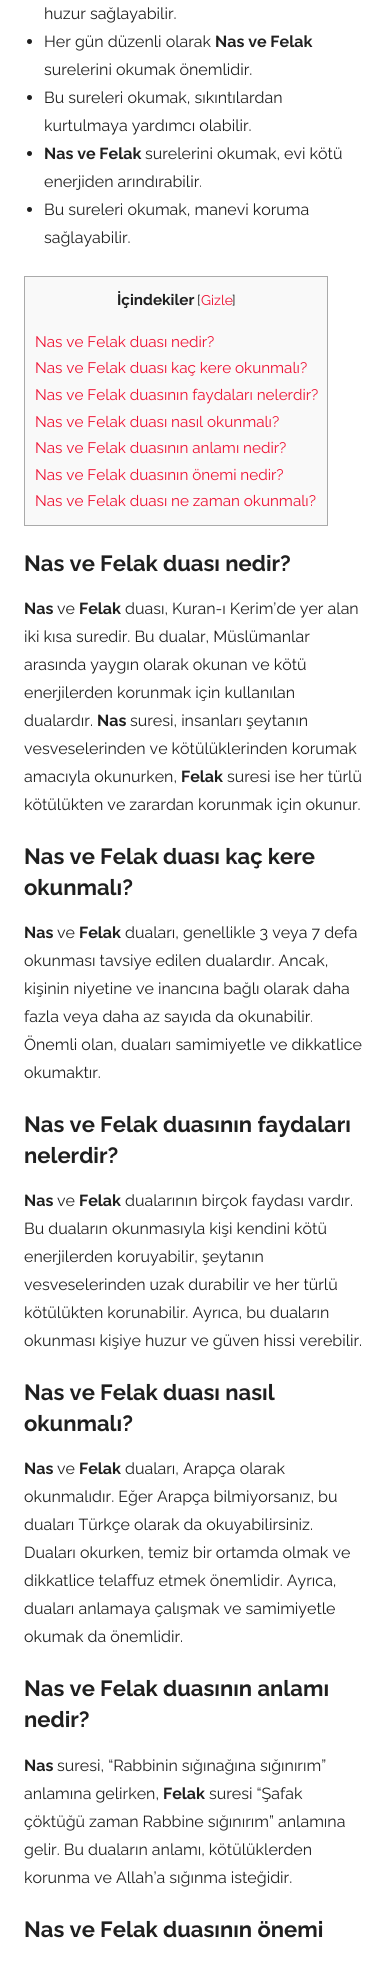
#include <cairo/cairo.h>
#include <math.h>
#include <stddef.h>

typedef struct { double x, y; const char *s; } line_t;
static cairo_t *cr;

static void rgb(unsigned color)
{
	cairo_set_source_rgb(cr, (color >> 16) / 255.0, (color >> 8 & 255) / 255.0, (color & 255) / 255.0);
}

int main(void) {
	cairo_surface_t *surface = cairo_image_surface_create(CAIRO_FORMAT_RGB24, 388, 1961);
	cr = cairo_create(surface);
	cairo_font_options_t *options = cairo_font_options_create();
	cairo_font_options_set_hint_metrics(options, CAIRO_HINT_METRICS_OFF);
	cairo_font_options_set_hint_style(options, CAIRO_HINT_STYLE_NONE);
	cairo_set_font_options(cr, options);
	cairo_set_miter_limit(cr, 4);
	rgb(0xffffff);
	cairo_paint(cr);
	rgb(0x202020);
	cairo_arc(cr, 29.5, 41.5, 2.5, 0, 2 * M_PI);
	cairo_fill(cr);
	cairo_arc(cr, 29.5, 97.5, 2.5, 0, 2 * M_PI);
	cairo_fill(cr);
	cairo_arc(cr, 29.5, 153.5, 2.5, 0, 2 * M_PI);
	cairo_fill(cr);
	cairo_arc(cr, 29.5, 209.5, 2.5, 0, 2 * M_PI);
	cairo_fill(cr);
	rgb(0xf9f9f9);
	cairo_rectangle(cr, 24.5, 276.5, 303, 249);
	cairo_fill_preserve(cr);
	rgb(0xaaaaaa);
	cairo_set_line_width(cr, 1);
	cairo_stroke(cr);
	cairo_select_font_face(cr, "Raleway", CAIRO_FONT_SLANT_NORMAL, CAIRO_FONT_WEIGHT_NORMAL);
	cairo_set_font_size(cr, 16);
	rgb(0x202020);
	cairo_move_to(cr, 44, 19);
	cairo_show_text(cr, "huzur sağlayabilir.");
	cairo_move_to(cr, 44, 47);
	cairo_show_text(cr, "Her gün düzenli olarak");
	cairo_select_font_face(cr, "Raleway", CAIRO_FONT_SLANT_NORMAL, CAIRO_FONT_WEIGHT_BOLD);
	cairo_move_to(cr, 215, 47);
	cairo_show_text(cr, "Nas ve Felak");
	cairo_select_font_face(cr, "Raleway", CAIRO_FONT_SLANT_NORMAL, CAIRO_FONT_WEIGHT_NORMAL);
	{
		static const line_t items[] = {
			{44, 75, "surelerini okumak önemlidir."},
			{44, 103, "Bu sureleri okumak, sıkıntılardan"},
			{44, 131, "kurtulmaya yardımcı olabilir."},
		};
		for (size_t i = 0; i < sizeof items / sizeof *items; i++) {
			cairo_move_to(cr, items[i].x, items[i].y);
			cairo_show_text(cr, items[i].s);
		}
	}
	cairo_select_font_face(cr, "Raleway", CAIRO_FONT_SLANT_NORMAL, CAIRO_FONT_WEIGHT_BOLD);
	cairo_move_to(cr, 44, 159);
	cairo_show_text(cr, "Nas ve Felak");
	cairo_select_font_face(cr, "Raleway", CAIRO_FONT_SLANT_NORMAL, CAIRO_FONT_WEIGHT_NORMAL);
	{
		static const line_t items[] = {
			{145, 159, "surelerini okumak, evi kötü"},
			{44, 187, "enerjiden arındırabilir."},
			{44, 215, "Bu sureleri okumak, manevi koruma"},
			{44, 243, "sağlayabilir."},
		};
		for (size_t i = 0; i < sizeof items / sizeof *items; i++) {
			cairo_move_to(cr, items[i].x, items[i].y);
			cairo_show_text(cr, items[i].s);
		}
	}
	cairo_select_font_face(cr, "Raleway", CAIRO_FONT_SLANT_NORMAL, CAIRO_FONT_WEIGHT_BOLD);
	cairo_set_font_size(cr, 15.25);
	cairo_move_to(cr, 117, 305);
	cairo_show_text(cr, "İçindekiler");
	cairo_select_font_face(cr, "Raleway", CAIRO_FONT_SLANT_NORMAL, CAIRO_FONT_WEIGHT_NORMAL);
	cairo_set_font_size(cr, 14);
	cairo_move_to(cr, 197, 305);
	cairo_show_text(cr, "[");
	rgb(0xee1133);
	cairo_move_to(cr, 201, 305);
	cairo_show_text(cr, "Gizle");
	rgb(0x202020);
	cairo_move_to(cr, 232, 305);
	cairo_show_text(cr, "]");
	cairo_set_font_size(cr, 15.25);
	rgb(0xee1133);
	{
		static const line_t items[] = {
			{35, 347, "Nas ve Felak duası nedir?"},
			{35, 373, "Nas ve Felak duası kaç kere okunmalı?"},
			{35, 400, "Nas ve Felak duasının faydaları nelerdir?"},
			{35, 427, "Nas ve Felak duası nasıl okunmalı?"},
			{35, 453, "Nas ve Felak duasının anlamı nedir?"},
			{35, 480, "Nas ve Felak duasının önemi nedir?"},
			{35, 506, "Nas ve Felak duası ne zaman okunmalı?"},
		};
		for (size_t i = 0; i < sizeof items / sizeof *items; i++) {
			cairo_move_to(cr, items[i].x, items[i].y);
			cairo_show_text(cr, items[i].s);
		}
	}
	cairo_select_font_face(cr, "Raleway", CAIRO_FONT_SLANT_NORMAL, CAIRO_FONT_WEIGHT_BOLD);
	cairo_set_font_size(cr, 22);
	rgb(0x202020);
	cairo_move_to(cr, 24, 571);
	cairo_show_text(cr, "Nas ve Felak duası nedir?");
	cairo_set_font_size(cr, 16);
	cairo_move_to(cr, 24, 614);
	cairo_show_text(cr, "Nas");
	cairo_select_font_face(cr, "Raleway", CAIRO_FONT_SLANT_NORMAL, CAIRO_FONT_WEIGHT_NORMAL);
	cairo_move_to(cr, 57, 614);
	cairo_show_text(cr, "ve");
	cairo_select_font_face(cr, "Raleway", CAIRO_FONT_SLANT_NORMAL, CAIRO_FONT_WEIGHT_BOLD);
	cairo_move_to(cr, 79, 614);
	cairo_show_text(cr, "Felak");
	cairo_select_font_face(cr, "Raleway", CAIRO_FONT_SLANT_NORMAL, CAIRO_FONT_WEIGHT_NORMAL);
	{
		static const line_t items[] = {
			{125, 614, "duası, Kuran-ı Kerim’de yer alan"},
			{24, 642, "iki kısa suredir. Bu dualar, Müslümanlar"},
			{24, 670, "arasında yaygın olarak okunan ve kötü"},
			{24, 698, "enerjilerden korunmak için kullanılan"},
			{24, 726, "dualardır."},
		};
		for (size_t i = 0; i < sizeof items / sizeof *items; i++) {
			cairo_move_to(cr, items[i].x, items[i].y);
			cairo_show_text(cr, items[i].s);
		}
	}
	cairo_select_font_face(cr, "Raleway", CAIRO_FONT_SLANT_NORMAL, CAIRO_FONT_WEIGHT_BOLD);
	cairo_move_to(cr, 97, 726);
	cairo_show_text(cr, "Nas");
	cairo_select_font_face(cr, "Raleway", CAIRO_FONT_SLANT_NORMAL, CAIRO_FONT_WEIGHT_NORMAL);
	{
		static const line_t items[] = {
			{130, 726, "suresi, insanları şeytanın"},
			{24, 754, "vesveselerinden ve kötülüklerinden korumak"},
			{24, 782, "amacıyla okunurken,"},
		};
		for (size_t i = 0; i < sizeof items / sizeof *items; i++) {
			cairo_move_to(cr, items[i].x, items[i].y);
			cairo_show_text(cr, items[i].s);
		}
	}
	cairo_select_font_face(cr, "Raleway", CAIRO_FONT_SLANT_NORMAL, CAIRO_FONT_WEIGHT_BOLD);
	cairo_move_to(cr, 181, 782);
	cairo_show_text(cr, "Felak");
	cairo_select_font_face(cr, "Raleway", CAIRO_FONT_SLANT_NORMAL, CAIRO_FONT_WEIGHT_NORMAL);
	cairo_move_to(cr, 227, 782);
	cairo_show_text(cr, "suresi ise her türlü");
	cairo_move_to(cr, 24, 810);
	cairo_show_text(cr, "kötülükten ve zarardan korunmak için okunur.");
	cairo_select_font_face(cr, "Raleway", CAIRO_FONT_SLANT_NORMAL, CAIRO_FONT_WEIGHT_BOLD);
	cairo_set_font_size(cr, 22);
	cairo_move_to(cr, 24, 864);
	cairo_show_text(cr, "Nas ve Felak duası kaç kere");
	cairo_move_to(cr, 24, 895);
	cairo_show_text(cr, "okunmalı?");
	cairo_set_font_size(cr, 16);
	cairo_move_to(cr, 24, 938);
	cairo_show_text(cr, "Nas");
	cairo_select_font_face(cr, "Raleway", CAIRO_FONT_SLANT_NORMAL, CAIRO_FONT_WEIGHT_NORMAL);
	cairo_move_to(cr, 57, 938);
	cairo_show_text(cr, "ve");
	cairo_select_font_face(cr, "Raleway", CAIRO_FONT_SLANT_NORMAL, CAIRO_FONT_WEIGHT_BOLD);
	cairo_move_to(cr, 79, 938);
	cairo_show_text(cr, "Felak");
	cairo_select_font_face(cr, "Raleway", CAIRO_FONT_SLANT_NORMAL, CAIRO_FONT_WEIGHT_NORMAL);
	{
		static const line_t items[] = {
			{125, 938, "duaları, genellikle 3 veya 7 defa"},
			{24, 966, "okunması tavsiye edilen dualardır. Ancak,"},
			{24, 994, "kişinin niyetine ve inancına bağlı olarak daha"},
			{24, 1022, "fazla veya daha az sayıda da okunabilir."},
			{24, 1050, "Önemli olan, duaları samimiyetle ve dikkatlice"},
			{24, 1078, "okumaktır."},
		};
		for (size_t i = 0; i < sizeof items / sizeof *items; i++) {
			cairo_move_to(cr, items[i].x, items[i].y);
			cairo_show_text(cr, items[i].s);
		}
	}
	cairo_select_font_face(cr, "Raleway", CAIRO_FONT_SLANT_NORMAL, CAIRO_FONT_WEIGHT_BOLD);
	cairo_set_font_size(cr, 22);
	cairo_move_to(cr, 24, 1132);
	cairo_show_text(cr, "Nas ve Felak duasının faydaları");
	cairo_move_to(cr, 24, 1163);
	cairo_show_text(cr, "nelerdir?");
	cairo_set_font_size(cr, 16);
	cairo_move_to(cr, 24, 1206);
	cairo_show_text(cr, "Nas");
	cairo_select_font_face(cr, "Raleway", CAIRO_FONT_SLANT_NORMAL, CAIRO_FONT_WEIGHT_NORMAL);
	cairo_move_to(cr, 57, 1206);
	cairo_show_text(cr, "ve");
	cairo_select_font_face(cr, "Raleway", CAIRO_FONT_SLANT_NORMAL, CAIRO_FONT_WEIGHT_BOLD);
	cairo_move_to(cr, 79, 1206);
	cairo_show_text(cr, "Felak");
	cairo_select_font_face(cr, "Raleway", CAIRO_FONT_SLANT_NORMAL, CAIRO_FONT_WEIGHT_NORMAL);
	{
		static const line_t items[] = {
			{125, 1206, "dualarının birçok faydası vardır."},
			{24, 1234, "Bu duaların okunmasıyla kişi kendini kötü"},
			{24, 1262, "enerjilerden koruyabilir, şeytanın"},
			{24, 1290, "vesveselerinden uzak durabilir ve her türlü"},
			{24, 1318, "kötülükten korunabilir. Ayrıca, bu duaların"},
			{24, 1346, "okunması kişiye huzur ve güven hissi verebilir."},
		};
		for (size_t i = 0; i < sizeof items / sizeof *items; i++) {
			cairo_move_to(cr, items[i].x, items[i].y);
			cairo_show_text(cr, items[i].s);
		}
	}
	cairo_select_font_face(cr, "Raleway", CAIRO_FONT_SLANT_NORMAL, CAIRO_FONT_WEIGHT_BOLD);
	cairo_set_font_size(cr, 22);
	cairo_move_to(cr, 24, 1400);
	cairo_show_text(cr, "Nas ve Felak duası nasıl");
	cairo_move_to(cr, 24, 1431);
	cairo_show_text(cr, "okunmalı?");
	cairo_set_font_size(cr, 16);
	cairo_move_to(cr, 24, 1474);
	cairo_show_text(cr, "Nas");
	cairo_select_font_face(cr, "Raleway", CAIRO_FONT_SLANT_NORMAL, CAIRO_FONT_WEIGHT_NORMAL);
	cairo_move_to(cr, 57, 1474);
	cairo_show_text(cr, "ve");
	cairo_select_font_face(cr, "Raleway", CAIRO_FONT_SLANT_NORMAL, CAIRO_FONT_WEIGHT_BOLD);
	cairo_move_to(cr, 79, 1474);
	cairo_show_text(cr, "Felak");
	cairo_select_font_face(cr, "Raleway", CAIRO_FONT_SLANT_NORMAL, CAIRO_FONT_WEIGHT_NORMAL);
	{
		static const line_t items[] = {
			{125, 1474, "duaları, Arapça olarak"},
			{24, 1502, "okunmalıdır. Eğer Arapça bilmiyorsanız, bu"},
			{24, 1530, "duaları Türkçe olarak da okuyabilirsiniz."},
			{24, 1558, "Duaları okurken, temiz bir ortamda olmak ve"},
			{24, 1586, "dikkatlice telaffuz etmek önemlidir. Ayrıca,"},
			{24, 1614, "duaları anlamaya çalışmak ve samimiyetle"},
			{24, 1642, "okumak da önemlidir."},
		};
		for (size_t i = 0; i < sizeof items / sizeof *items; i++) {
			cairo_move_to(cr, items[i].x, items[i].y);
			cairo_show_text(cr, items[i].s);
		}
	}
	cairo_select_font_face(cr, "Raleway", CAIRO_FONT_SLANT_NORMAL, CAIRO_FONT_WEIGHT_BOLD);
	cairo_set_font_size(cr, 22);
	cairo_move_to(cr, 24, 1696);
	cairo_show_text(cr, "Nas ve Felak duasının anlamı");
	cairo_move_to(cr, 24, 1727);
	cairo_show_text(cr, "nedir?");
	cairo_set_font_size(cr, 16);
	cairo_move_to(cr, 24, 1771);
	cairo_show_text(cr, "Nas");
	cairo_select_font_face(cr, "Raleway", CAIRO_FONT_SLANT_NORMAL, CAIRO_FONT_WEIGHT_NORMAL);
	cairo_move_to(cr, 57, 1771);
	cairo_show_text(cr, "suresi, “Rabbinin sığınağına sığınırım”");
	cairo_move_to(cr, 24, 1799);
	cairo_show_text(cr, "anlamına gelirken,");
	cairo_select_font_face(cr, "Raleway", CAIRO_FONT_SLANT_NORMAL, CAIRO_FONT_WEIGHT_BOLD);
	cairo_move_to(cr, 163, 1799);
	cairo_show_text(cr, "Felak");
	cairo_select_font_face(cr, "Raleway", CAIRO_FONT_SLANT_NORMAL, CAIRO_FONT_WEIGHT_NORMAL);
	{
		static const line_t items[] = {
			{209, 1799, "suresi “Şafak"},
			{24, 1827, "çöktüğü zaman Rabbine sığınırım” anlamına"},
			{24, 1855, "gelir. Bu duaların anlamı, kötülüklerden"},
			{24, 1883, "korunma ve Allah’a sığınma isteğidir."},
		};
		for (size_t i = 0; i < sizeof items / sizeof *items; i++) {
			cairo_move_to(cr, items[i].x, items[i].y);
			cairo_show_text(cr, items[i].s);
		}
	}
	cairo_select_font_face(cr, "Raleway", CAIRO_FONT_SLANT_NORMAL, CAIRO_FONT_WEIGHT_BOLD);
	cairo_set_font_size(cr, 22);
	cairo_move_to(cr, 24, 1937);
	cairo_show_text(cr, "Nas ve Felak duasının önemi");
	cairo_surface_write_to_png(surface, "page.png");
	cairo_font_options_destroy(options);
	cairo_destroy(cr);
	cairo_surface_destroy(surface);
	return 0;
}
